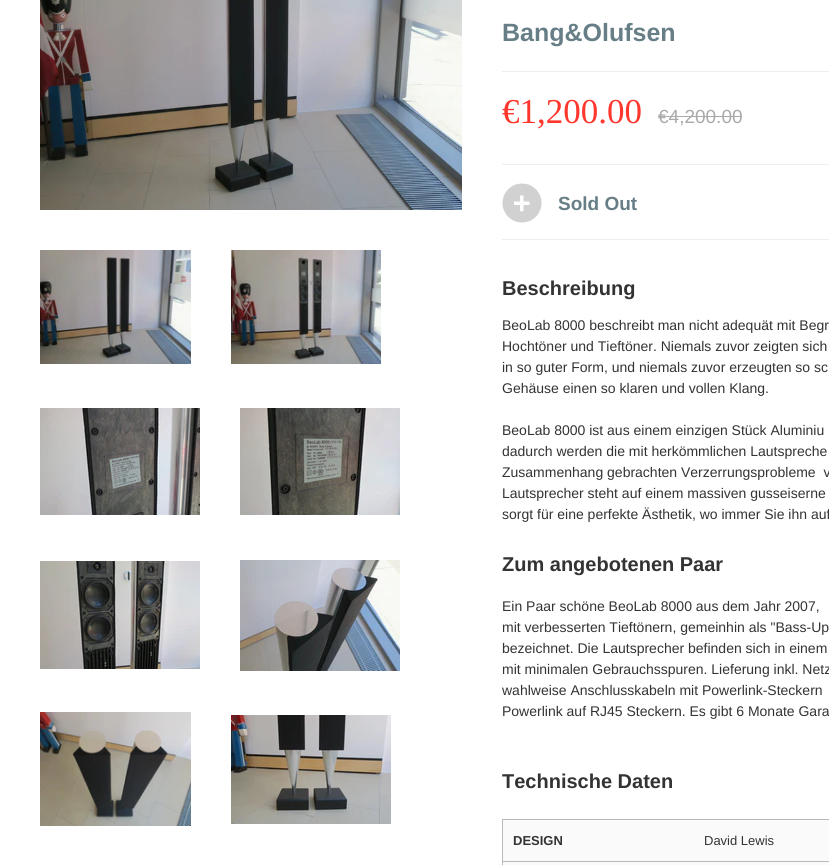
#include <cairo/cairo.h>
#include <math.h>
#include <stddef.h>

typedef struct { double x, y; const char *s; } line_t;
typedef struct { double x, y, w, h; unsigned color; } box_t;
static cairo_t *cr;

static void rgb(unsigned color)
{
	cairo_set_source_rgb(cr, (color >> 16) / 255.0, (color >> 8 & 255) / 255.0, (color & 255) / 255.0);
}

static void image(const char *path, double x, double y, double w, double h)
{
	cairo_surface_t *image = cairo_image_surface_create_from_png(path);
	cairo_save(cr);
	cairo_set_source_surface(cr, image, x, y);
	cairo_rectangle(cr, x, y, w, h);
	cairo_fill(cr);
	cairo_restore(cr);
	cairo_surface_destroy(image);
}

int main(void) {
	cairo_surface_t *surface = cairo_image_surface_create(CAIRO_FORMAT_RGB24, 829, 865);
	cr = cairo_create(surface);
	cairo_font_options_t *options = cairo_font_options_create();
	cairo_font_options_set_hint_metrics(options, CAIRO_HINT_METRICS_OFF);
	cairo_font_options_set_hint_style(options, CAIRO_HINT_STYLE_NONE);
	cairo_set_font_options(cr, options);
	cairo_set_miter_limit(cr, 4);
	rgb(0xffffff);
	cairo_paint(cr);
	image("img/1.png", 40, 0, 422, 210);
	image("img/2.png", 40, 250, 151, 114);
	image("img/3.png", 231, 250, 150, 114);
	image("img/4.png", 40, 408, 160, 107);
	image("img/5.png", 240, 408, 160, 107);
	image("img/6.png", 40, 561, 160, 108);
	image("img/7.png", 240, 560, 160, 111);
	image("img/8.png", 40, 712, 151, 114);
	image("img/9.png", 231, 715, 160, 109);
	{
		static const box_t items[] = {
			{502, 71, 327, 1, 0xeeeeee},
			{502, 164, 327, 1, 0xeeeeee},
			{658, 116, 84, 1, 0xa9aaaa},
			{502, 239, 327, 1, 0xeeeeee},
		};
		for (size_t i = 0; i < sizeof items / sizeof *items; i++) {
			rgb(items[i].color);
			cairo_rectangle(cr, items[i].x, items[i].y, items[i].w, items[i].h);
			cairo_fill(cr);
		}
	}
	image("img/10.png", 502, 183, 40, 40);
	{
		static const box_t items[] = {
			{502, 819, 327, 1, 0xb9b9b9},
			{502, 819, 1, 46, 0xb9b9b9},
			{503, 820, 326, 41, 0xfafafa},
			{502, 861, 327, 1, 0xb9b9b9},
			{503, 862, 326, 3, 0xfafafa},
		};
		for (size_t i = 0; i < sizeof items / sizeof *items; i++) {
			rgb(items[i].color);
			cairo_rectangle(cr, items[i].x, items[i].y, items[i].w, items[i].h);
			cairo_fill(cr);
		}
	}
	cairo_select_font_face(cr, "Liberation Sans", CAIRO_FONT_SLANT_NORMAL, CAIRO_FONT_WEIGHT_BOLD);
	cairo_set_font_size(cr, 25);
	rgb(0x677e87);
	cairo_move_to(cr, 502, 41);
	cairo_show_text(cr, "Bang&Olufsen");
	cairo_select_font_face(cr, "Liberation Serif", CAIRO_FONT_SLANT_NORMAL, CAIRO_FONT_WEIGHT_NORMAL);
	cairo_set_font_size(cr, 35);
	rgb(0xfe362c);
	cairo_move_to(cr, 502, 123);
	cairo_show_text(cr, "€1,200.00");
	cairo_select_font_face(cr, "Liberation Sans", CAIRO_FONT_SLANT_NORMAL, CAIRO_FONT_WEIGHT_NORMAL);
	cairo_set_font_size(cr, 19);
	rgb(0xa9aaaa);
	cairo_move_to(cr, 658, 123);
	cairo_show_text(cr, "€4,200.00");
	cairo_select_font_face(cr, "Liberation Sans", CAIRO_FONT_SLANT_NORMAL, CAIRO_FONT_WEIGHT_BOLD);
	rgb(0x677e87);
	cairo_move_to(cr, 558, 210);
	cairo_show_text(cr, "Sold Out");
	cairo_set_font_size(cr, 20);
	rgb(0x333333);
	cairo_move_to(cr, 502, 295);
	cairo_show_text(cr, "Beschreibung");
	cairo_select_font_face(cr, "Liberation Sans", CAIRO_FONT_SLANT_NORMAL, CAIRO_FONT_WEIGHT_NORMAL);
	cairo_set_font_size(cr, 14);
	{
		static const line_t items[] = {
			{502, 330, "BeoLab 8000 beschreibt man nicht adequät mit Begr"},
			{502, 351, "Hochtöner und Tieftöner. Niemals zuvor zeigten sich"},
			{502, 372, "in so guter Form, und niemals zuvor erzeugten so sc"},
			{502, 393, "Gehäuse einen so klaren und vollen Klang."},
			{502, 435, "BeoLab 8000 ist aus einem einzigen Stück Aluminiu"},
			{502, 456, "dadurch werden die mit herkömmlichen Lautspreche"},
			{502, 477, "Zusammenhang gebrachten Verzerrungsprobleme  v"},
			{502, 498, "Lautsprecher steht auf einem massiven gusseiserne"},
			{502, 519, "sorgt für eine perfekte Ästhetik, wo immer Sie ihn auf"},
		};
		for (size_t i = 0; i < sizeof items / sizeof *items; i++) {
			cairo_move_to(cr, items[i].x, items[i].y);
			cairo_show_text(cr, items[i].s);
		}
	}
	cairo_select_font_face(cr, "Liberation Sans", CAIRO_FONT_SLANT_NORMAL, CAIRO_FONT_WEIGHT_BOLD);
	cairo_set_font_size(cr, 20);
	cairo_move_to(cr, 502, 571);
	cairo_show_text(cr, "Zum angebotenen Paar");
	cairo_select_font_face(cr, "Liberation Sans", CAIRO_FONT_SLANT_NORMAL, CAIRO_FONT_WEIGHT_NORMAL);
	cairo_set_font_size(cr, 14);
	{
		static const line_t items[] = {
			{502, 611, "Ein Paar schöne BeoLab 8000 aus dem Jahr 2007,"},
			{502, 632, "mit verbesserten Tieftönern, gemeinhin als \"Bass-Up"},
			{502, 653, "bezeichnet. Die Lautsprecher befinden sich in einem"},
			{502, 674, "mit minimalen Gebrauchsspuren. Lieferung inkl. Netz"},
			{502, 695, "wahlweise Anschlusskabeln mit Powerlink-Steckern"},
			{502, 716, "Powerlink auf RJ45 Steckern. Es gibt 6 Monate Gara"},
		};
		for (size_t i = 0; i < sizeof items / sizeof *items; i++) {
			cairo_move_to(cr, items[i].x, items[i].y);
			cairo_show_text(cr, items[i].s);
		}
	}
	cairo_select_font_face(cr, "Liberation Sans", CAIRO_FONT_SLANT_NORMAL, CAIRO_FONT_WEIGHT_BOLD);
	cairo_set_font_size(cr, 20);
	cairo_move_to(cr, 502, 788);
	cairo_show_text(cr, "Technische Daten");
	cairo_set_font_size(cr, 13);
	cairo_move_to(cr, 513, 845);
	cairo_show_text(cr, "DESIGN");
	cairo_select_font_face(cr, "Liberation Sans", CAIRO_FONT_SLANT_NORMAL, CAIRO_FONT_WEIGHT_NORMAL);
	cairo_move_to(cr, 704, 845);
	cairo_show_text(cr, "David Lewis");
	cairo_surface_write_to_png(surface, "page.png");
	cairo_font_options_destroy(options);
	cairo_destroy(cr);
	cairo_surface_destroy(surface);
	return 0;
}
